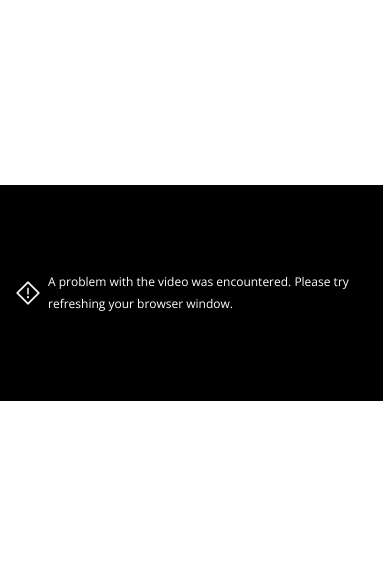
#include <cairo/cairo.h>
#include <math.h>
#include <stddef.h>

static cairo_t *cr;

static void rgb(unsigned color)
{
	cairo_set_source_rgb(cr, (color >> 16) / 255.0, (color >> 8 & 255) / 255.0, (color & 255) / 255.0);
}

static void image(const char *path, double x, double y, double w, double h)
{
	cairo_surface_t *image = cairo_image_surface_create_from_png(path);
	cairo_save(cr);
	cairo_set_source_surface(cr, image, x, y);
	cairo_rectangle(cr, x, y, w, h);
	cairo_fill(cr);
	cairo_restore(cr);
	cairo_surface_destroy(image);
}

int main(void) {
	cairo_surface_t *surface = cairo_image_surface_create(CAIRO_FORMAT_RGB24, 383, 586);
	cr = cairo_create(surface);
	cairo_font_options_t *options = cairo_font_options_create();
	cairo_font_options_set_hint_metrics(options, CAIRO_HINT_METRICS_OFF);
	cairo_font_options_set_hint_style(options, CAIRO_HINT_STYLE_NONE);
	cairo_set_font_options(cr, options);
	cairo_set_miter_limit(cr, 4);
	rgb(0xffffff);
	cairo_paint(cr);
	rgb(0x000000);
	cairo_rectangle(cr, 0, 185, 383, 216);
	cairo_fill(cr);
	image("img/1.png", 16, 281, 24, 24);
	cairo_select_font_face(cr, "Open Sans", CAIRO_FONT_SLANT_NORMAL, CAIRO_FONT_WEIGHT_NORMAL);
	cairo_set_font_size(cr, 12);
	rgb(0xffffff);
	cairo_move_to(cr, 48, 286);
	cairo_show_text(cr, "A problem with the video was encountered. Please try");
	cairo_move_to(cr, 48, 308);
	cairo_show_text(cr, "refreshing your browser window.");
	cairo_surface_write_to_png(surface, "page.png");
	cairo_font_options_destroy(options);
	cairo_destroy(cr);
	cairo_surface_destroy(surface);
	return 0;
}
